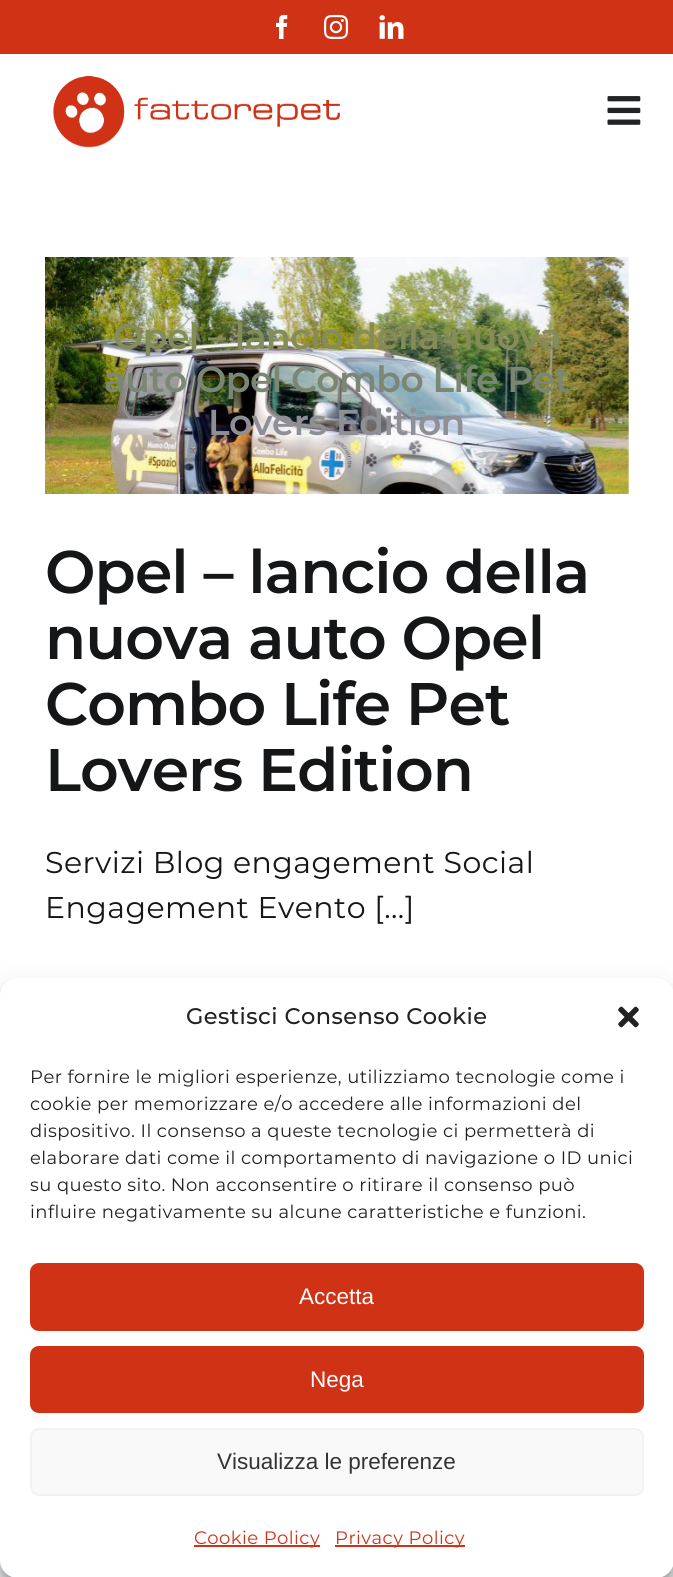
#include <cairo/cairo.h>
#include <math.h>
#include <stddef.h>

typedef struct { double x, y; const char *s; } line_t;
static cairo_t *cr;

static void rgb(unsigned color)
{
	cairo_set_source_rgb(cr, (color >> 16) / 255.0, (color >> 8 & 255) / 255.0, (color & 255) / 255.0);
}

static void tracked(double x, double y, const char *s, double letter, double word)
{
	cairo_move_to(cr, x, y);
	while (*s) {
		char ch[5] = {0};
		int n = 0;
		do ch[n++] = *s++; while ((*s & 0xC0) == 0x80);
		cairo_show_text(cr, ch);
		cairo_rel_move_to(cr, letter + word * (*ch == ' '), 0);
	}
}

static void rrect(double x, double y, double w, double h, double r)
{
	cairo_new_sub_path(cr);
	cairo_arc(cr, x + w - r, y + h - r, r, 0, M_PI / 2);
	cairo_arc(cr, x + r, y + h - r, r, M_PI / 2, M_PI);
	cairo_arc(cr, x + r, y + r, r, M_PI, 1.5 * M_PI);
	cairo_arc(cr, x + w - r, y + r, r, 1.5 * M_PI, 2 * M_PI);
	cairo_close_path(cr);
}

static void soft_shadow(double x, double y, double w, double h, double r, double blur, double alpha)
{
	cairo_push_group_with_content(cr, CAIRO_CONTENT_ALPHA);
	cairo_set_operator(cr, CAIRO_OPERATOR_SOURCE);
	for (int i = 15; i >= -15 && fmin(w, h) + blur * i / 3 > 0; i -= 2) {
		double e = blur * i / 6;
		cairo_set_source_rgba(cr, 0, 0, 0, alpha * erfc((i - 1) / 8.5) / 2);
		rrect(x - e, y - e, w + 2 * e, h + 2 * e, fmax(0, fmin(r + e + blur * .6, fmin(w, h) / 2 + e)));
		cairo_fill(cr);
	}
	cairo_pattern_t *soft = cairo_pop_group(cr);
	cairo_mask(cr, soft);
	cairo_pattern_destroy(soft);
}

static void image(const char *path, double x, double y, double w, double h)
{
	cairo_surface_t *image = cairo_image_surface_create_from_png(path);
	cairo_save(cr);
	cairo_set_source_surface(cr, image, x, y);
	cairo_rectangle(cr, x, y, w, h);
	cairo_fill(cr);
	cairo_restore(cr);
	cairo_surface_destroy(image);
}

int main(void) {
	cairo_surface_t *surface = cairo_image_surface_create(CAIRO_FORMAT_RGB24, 673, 1577);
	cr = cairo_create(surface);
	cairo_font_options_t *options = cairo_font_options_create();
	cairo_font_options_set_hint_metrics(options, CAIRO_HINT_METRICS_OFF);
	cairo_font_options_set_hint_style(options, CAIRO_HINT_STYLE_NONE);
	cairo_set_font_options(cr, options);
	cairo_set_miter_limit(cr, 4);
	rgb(0xf2f3f5);
	cairo_paint(cr);
	rgb(0xffffff);
	cairo_rectangle(cr, 0, 54, 673, 942);
	cairo_fill(cr);
	rgb(0xd03216);
	cairo_rectangle(cr, 0, 0, 673, 54);
	cairo_fill(cr);
	image("img/1.png", 276, 15, 12, 24);
	image("img/2.png", 324, 15, 24, 24);
	image("img/3.png", 379, 15, 25, 24);
	image("img/4.png", 53, 76, 288, 72);
	image("img/5.png", 607, 96, 34, 29);
	image("img/6.png", 45, 257, 584, 237);
	rgb(0x000000);
	soft_shadow(0, 987, 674, 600, 18, 4.5, 0.23);
	soft_shadow(0, 993, 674, 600, 18, 15, 0.19);
	rgb(0xffffff);
	rrect(0, 978, 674, 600, 18);
	cairo_fill(cr);
	image("img/7.png", 618, 1006, 21, 22);
	rgb(0xd03216);
	rrect(31, 1264, 612, 66, 8);
	cairo_fill_preserve(cr);
	cairo_stroke(cr);
	rrect(31, 1347, 612, 65, 8);
	cairo_fill_preserve(cr);
	cairo_stroke(cr);
	rgb(0xf9f9f9);
	rrect(31, 1429, 612, 66, 8);
	cairo_fill_preserve(cr);
	rgb(0xf2f2f2);
	cairo_stroke(cr);
	rgb(0xd03216);
	cairo_rectangle(cr, 194, 1545, 126, 2);
	cairo_fill(cr);
	cairo_rectangle(cr, 335, 1545, 130, 2);
	cairo_fill(cr);
	cairo_select_font_face(cr, "Montserrat SemiBold", CAIRO_FONT_SLANT_NORMAL, CAIRO_FONT_WEIGHT_NORMAL);
	cairo_set_font_size(cr, 36);
	rgb(0x848c58);
	tracked(113, 349, "Opel – lancio della nuova", -0.55, 0);
	rgb(0x7a8775);
	tracked(104, 392, "auto Opel Combo Life Pet", -0.55, 0);
	rgb(0x8f9096);
	tracked(208, 435, "Lovers Edition", -0.55, 0);
	cairo_set_font_size(cr, 60);
	rgb(0x141617);
	{
		static const line_t items[] = {
			{45, 593, "Opel – lancio della"},
			{45, 659, "nuova auto Opel"},
			{45, 725, "Combo Life Pet"},
			{45, 791, "Lovers Edition"},
		};
		for (size_t i = 0; i < sizeof items / sizeof *items; i++) {
			tracked(items[i].x, items[i].y, items[i].s, -0.9, 0);
		}
	}
	cairo_select_font_face(cr, "Montserrat", CAIRO_FONT_SLANT_NORMAL, CAIRO_FONT_WEIGHT_NORMAL);
	cairo_set_font_size(cr, 30);
	tracked(45, 873, "Servizi Blog engagement Social", 0.45, 0);
	tracked(45, 918, "Engagement Evento [...]", 0.45, 0);
	cairo_select_font_face(cr, "Montserrat Medium", CAIRO_FONT_SLANT_NORMAL, CAIRO_FONT_WEIGHT_NORMAL);
	cairo_set_font_size(cr, 22.5);
	rgb(0x222222);
	tracked(186, 1024, "Gestisci Consenso Cookie", 0.45, 0);
	cairo_select_font_face(cr, "Montserrat", CAIRO_FONT_SLANT_NORMAL, CAIRO_FONT_WEIGHT_NORMAL);
	cairo_set_font_size(cr, 18);
	{
		static const line_t items[] = {
			{30, 1083, "Per fornire le migliori esperienze, utilizziamo tecnologie come i"},
			{30, 1110, "cookie per memorizzare e/o accedere alle informazioni del"},
			{30, 1137, "dispositivo. Il consenso a queste tecnologie ci permetterà di"},
			{30, 1164, "elaborare dati come il comportamento di navigazione o ID unici"},
			{30, 1191, "su questo sito. Non acconsentire o ritirare il consenso può"},
			{30, 1218, "influire negativamente su alcune caratteristiche e funzioni."},
		};
		for (size_t i = 0; i < sizeof items / sizeof *items; i++) {
			tracked(items[i].x, items[i].y, items[i].s, 0.45, 0);
		}
	}
	cairo_select_font_face(cr, "Liberation Sans", CAIRO_FONT_SLANT_NORMAL, CAIRO_FONT_WEIGHT_NORMAL);
	cairo_set_font_size(cr, 22.5);
	rgb(0xffffff);
	cairo_move_to(cr, 299, 1304);
	cairo_show_text(cr, "Accetta");
	cairo_move_to(cr, 310, 1387);
	cairo_show_text(cr, "Nega");
	rgb(0x333333);
	cairo_move_to(cr, 217, 1469);
	cairo_show_text(cr, "Visualizza le preferenze");
	cairo_select_font_face(cr, "Montserrat", CAIRO_FONT_SLANT_NORMAL, CAIRO_FONT_WEIGHT_NORMAL);
	cairo_set_font_size(cr, 18);
	rgb(0xd03216);
	tracked(194, 1544, "Cookie Policy", 0.45, 0);
	tracked(335, 1544, "Privacy Policy", 0.45, 0);
	cairo_surface_write_to_png(surface, "page.png");
	cairo_font_options_destroy(options);
	cairo_destroy(cr);
	cairo_surface_destroy(surface);
	return 0;
}
